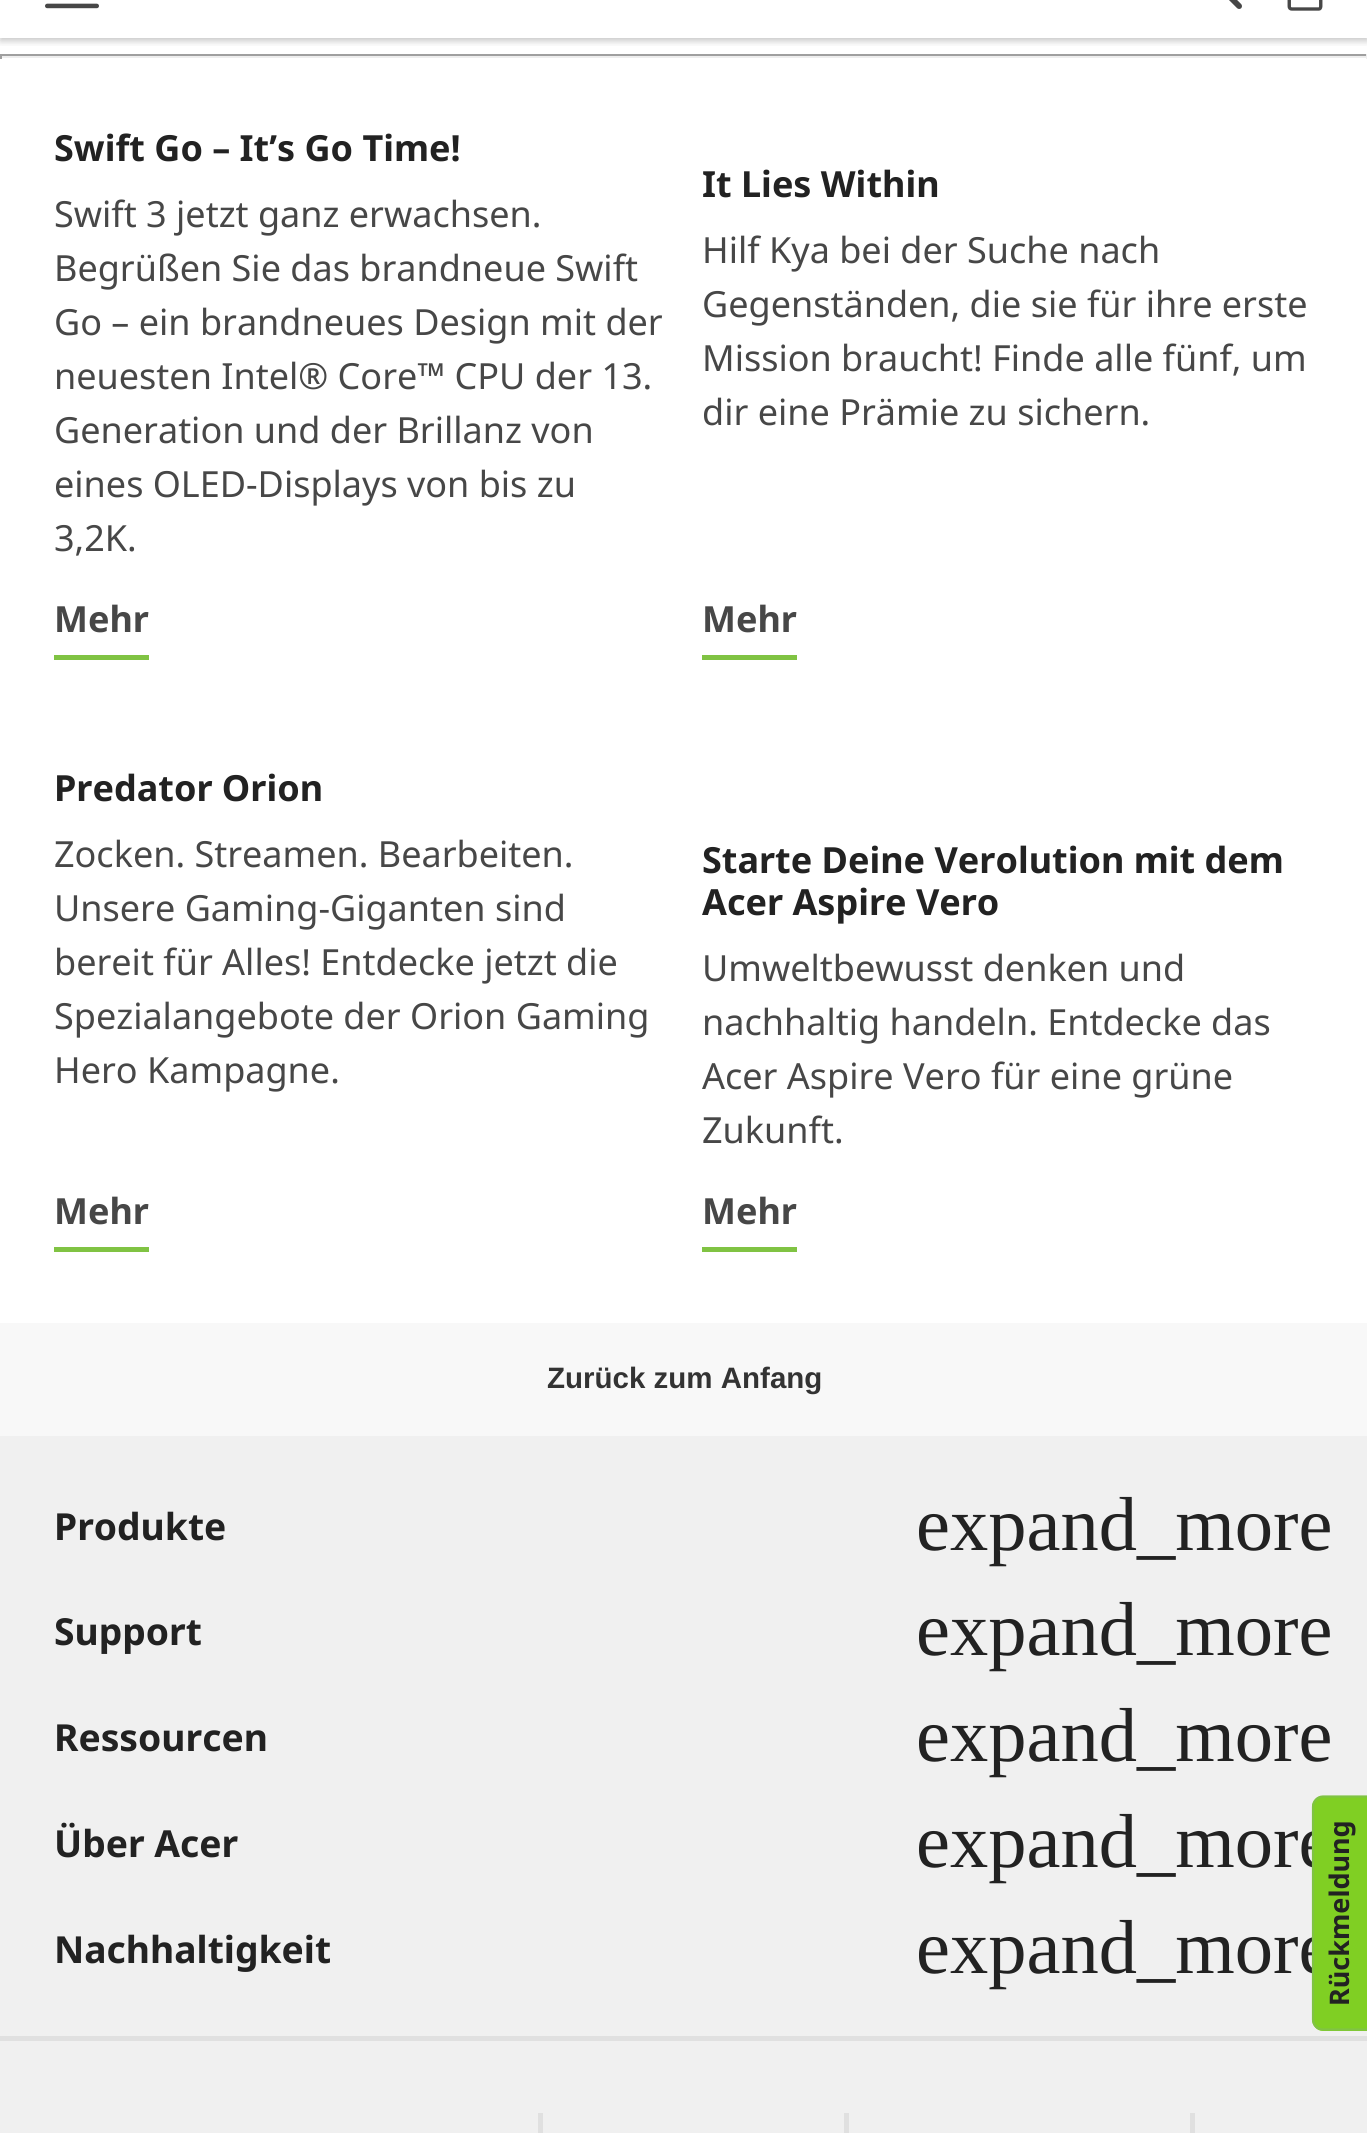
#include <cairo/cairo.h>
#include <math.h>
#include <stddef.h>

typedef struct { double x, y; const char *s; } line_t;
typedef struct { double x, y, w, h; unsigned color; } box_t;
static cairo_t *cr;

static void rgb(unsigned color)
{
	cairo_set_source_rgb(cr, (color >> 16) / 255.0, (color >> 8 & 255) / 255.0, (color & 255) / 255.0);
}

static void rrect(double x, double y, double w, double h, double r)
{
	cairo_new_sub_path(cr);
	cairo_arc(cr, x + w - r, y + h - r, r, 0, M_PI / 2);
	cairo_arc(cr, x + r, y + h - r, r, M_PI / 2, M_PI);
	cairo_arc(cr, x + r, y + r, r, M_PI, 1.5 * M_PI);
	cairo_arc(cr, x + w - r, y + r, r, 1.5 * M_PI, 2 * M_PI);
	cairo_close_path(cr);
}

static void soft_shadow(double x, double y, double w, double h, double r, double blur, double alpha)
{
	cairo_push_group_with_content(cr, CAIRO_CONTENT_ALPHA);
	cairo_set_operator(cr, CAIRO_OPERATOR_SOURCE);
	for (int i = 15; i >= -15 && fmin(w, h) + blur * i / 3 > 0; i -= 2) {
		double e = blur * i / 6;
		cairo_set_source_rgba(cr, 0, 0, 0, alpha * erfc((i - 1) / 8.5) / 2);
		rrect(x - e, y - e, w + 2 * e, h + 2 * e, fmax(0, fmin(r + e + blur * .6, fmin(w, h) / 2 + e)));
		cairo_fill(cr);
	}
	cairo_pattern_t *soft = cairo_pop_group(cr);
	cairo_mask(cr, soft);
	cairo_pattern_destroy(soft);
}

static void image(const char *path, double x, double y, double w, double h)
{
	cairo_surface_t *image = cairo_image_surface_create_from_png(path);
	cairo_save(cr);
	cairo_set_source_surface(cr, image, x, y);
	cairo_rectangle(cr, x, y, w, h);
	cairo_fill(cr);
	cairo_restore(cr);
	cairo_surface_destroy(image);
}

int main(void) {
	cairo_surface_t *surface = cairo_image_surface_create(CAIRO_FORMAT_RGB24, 1367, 2133);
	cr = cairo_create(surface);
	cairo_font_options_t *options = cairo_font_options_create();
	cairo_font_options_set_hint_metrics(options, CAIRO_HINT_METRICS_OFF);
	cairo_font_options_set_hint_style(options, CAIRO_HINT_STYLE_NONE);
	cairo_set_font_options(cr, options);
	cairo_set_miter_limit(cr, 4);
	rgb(0xffffff);
	cairo_paint(cr);
	{
		static const box_t items[] = {
			{0, 54, 1367, 2, 0x9f9f9f},
			{1366, 54, 1, 5, 0xeeeeee},
			{0, 56, 1367, 2, 0xeeeeee},
			{0, 54, 2, 5, 0x9f9f9f},
			{54, 655, 95, 5, 0x80c343},
			{702, 655, 95, 5, 0x80c343},
			{54, 1247, 95, 5, 0x80c343},
			{702, 1247, 95, 5, 0x80c343},
			{0, 1436, 1367, 697, 0xf0f0f0},
			{0, 1323, 1367, 113, 0xf8f8f8},
			{0, 2036, 1367, 5, 0xe0e0e0},
			{538, 2113, 5, 20, 0xe0e0e0},
			{844, 2113, 5, 20, 0xe0e0e0},
			{1190, 2113, 5, 20, 0xe0e0e0},
		};
		for (size_t i = 0; i < sizeof items / sizeof *items; i++) {
			rgb(items[i].color);
			cairo_rectangle(cr, items[i].x, items[i].y, items[i].w, items[i].h);
			cairo_fill(cr);
		}
	}
	cairo_save(cr);
	cairo_rectangle(cr, 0, 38, 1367, 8);
	cairo_clip(cr);
	rgb(0x000000);
	soft_shadow(0, -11, 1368, 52, 0, 3.5, 0.22);
	cairo_restore(cr);
	image("img/1.png", 45, 3, 54, 6);
	image("img/2.png", 1229, 0, 13, 9);
	image("img/3.png", 1287, 0, 36, 11);
	cairo_select_font_face(cr, "Noto Sans", CAIRO_FONT_SLANT_NORMAL, CAIRO_FONT_WEIGHT_BOLD);
	cairo_set_font_size(cr, 36);
	rgb(0x222222);
	cairo_move_to(cr, 54, 161);
	cairo_show_text(cr, "Swift Go – It’s Go Time!");
	cairo_select_font_face(cr, "Noto Sans", CAIRO_FONT_SLANT_NORMAL, CAIRO_FONT_WEIGHT_NORMAL);
	rgb(0x474747);
	{
		static const line_t items[] = {
			{54, 227, "Swift 3 jetzt ganz erwachsen."},
			{54, 281, "Begrüßen Sie das brandneue Swift"},
			{54, 335, "Go – ein brandneues Design mit der"},
			{54, 389, "neuesten Intel® Core™ CPU der 13."},
			{54, 443, "Generation und der Brillanz von"},
			{54, 497, "eines OLED-Displays von bis zu"},
			{54, 551, "3,2K."},
		};
		for (size_t i = 0; i < sizeof items / sizeof *items; i++) {
			cairo_move_to(cr, items[i].x, items[i].y);
			cairo_show_text(cr, items[i].s);
		}
	}
	cairo_select_font_face(cr, "Noto Sans", CAIRO_FONT_SLANT_NORMAL, CAIRO_FONT_WEIGHT_BOLD);
	cairo_move_to(cr, 54, 632);
	cairo_show_text(cr, "Mehr");
	rgb(0x222222);
	cairo_move_to(cr, 702, 197);
	cairo_show_text(cr, "It Lies Within");
	cairo_select_font_face(cr, "Noto Sans", CAIRO_FONT_SLANT_NORMAL, CAIRO_FONT_WEIGHT_NORMAL);
	rgb(0x474747);
	{
		static const line_t items[] = {
			{702, 263, "Hilf Kya bei der Suche nach"},
			{702, 317, "Gegenständen, die sie für ihre erste"},
			{702, 371, "Mission braucht! Finde alle fünf, um"},
			{702, 425, "dir eine Prämie zu sichern."},
		};
		for (size_t i = 0; i < sizeof items / sizeof *items; i++) {
			cairo_move_to(cr, items[i].x, items[i].y);
			cairo_show_text(cr, items[i].s);
		}
	}
	cairo_select_font_face(cr, "Noto Sans", CAIRO_FONT_SLANT_NORMAL, CAIRO_FONT_WEIGHT_BOLD);
	cairo_move_to(cr, 702, 632);
	cairo_show_text(cr, "Mehr");
	rgb(0x222222);
	cairo_move_to(cr, 54, 801);
	cairo_show_text(cr, "Predator Orion");
	cairo_select_font_face(cr, "Noto Sans", CAIRO_FONT_SLANT_NORMAL, CAIRO_FONT_WEIGHT_NORMAL);
	rgb(0x474747);
	{
		static const line_t items[] = {
			{54, 867, "Zocken. Streamen. Bearbeiten."},
			{54, 921, "Unsere Gaming-Giganten sind"},
			{54, 975, "bereit für Alles! Entdecke jetzt die"},
			{54, 1029, "Spezialangebote der Orion Gaming"},
			{54, 1083, "Hero Kampagne."},
		};
		for (size_t i = 0; i < sizeof items / sizeof *items; i++) {
			cairo_move_to(cr, items[i].x, items[i].y);
			cairo_show_text(cr, items[i].s);
		}
	}
	cairo_select_font_face(cr, "Noto Sans", CAIRO_FONT_SLANT_NORMAL, CAIRO_FONT_WEIGHT_BOLD);
	cairo_move_to(cr, 54, 1224);
	cairo_show_text(cr, "Mehr");
	rgb(0x222222);
	cairo_move_to(cr, 702, 873);
	cairo_show_text(cr, "Starte Deine Verolution mit dem");
	cairo_move_to(cr, 702, 915);
	cairo_show_text(cr, "Acer Aspire Vero");
	cairo_select_font_face(cr, "Noto Sans", CAIRO_FONT_SLANT_NORMAL, CAIRO_FONT_WEIGHT_NORMAL);
	rgb(0x474747);
	{
		static const line_t items[] = {
			{702, 981, "Umweltbewusst denken und"},
			{702, 1035, "nachhaltig handeln. Entdecke das"},
			{702, 1089, "Acer Aspire Vero für eine grüne"},
			{702, 1143, "Zukunft."},
		};
		for (size_t i = 0; i < sizeof items / sizeof *items; i++) {
			cairo_move_to(cr, items[i].x, items[i].y);
			cairo_show_text(cr, items[i].s);
		}
	}
	cairo_select_font_face(cr, "Noto Sans", CAIRO_FONT_SLANT_NORMAL, CAIRO_FONT_WEIGHT_BOLD);
	cairo_move_to(cr, 702, 1224);
	cairo_show_text(cr, "Mehr");
	cairo_select_font_face(cr, "Liberation Sans", CAIRO_FONT_SLANT_NORMAL, CAIRO_FONT_WEIGHT_BOLD);
	cairo_set_font_size(cr, 29.5);
	rgb(0x333333);
	cairo_move_to(cr, 547, 1388);
	cairo_show_text(cr, "Zurück zum Anfang");
	cairo_select_font_face(cr, "Noto Sans", CAIRO_FONT_SLANT_NORMAL, CAIRO_FONT_WEIGHT_BOLD);
	cairo_set_font_size(cr, 37.25);
	rgb(0x222222);
	cairo_move_to(cr, 54, 1540);
	cairo_show_text(cr, "Produkte");
	cairo_select_font_face(cr, "Liberation Serif", CAIRO_FONT_SLANT_NORMAL, CAIRO_FONT_WEIGHT_NORMAL);
	cairo_set_font_size(cr, 76.5);
	cairo_move_to(cr, 916, 1550);
	cairo_show_text(cr, "expand_more");
	cairo_select_font_face(cr, "Noto Sans", CAIRO_FONT_SLANT_NORMAL, CAIRO_FONT_WEIGHT_BOLD);
	cairo_set_font_size(cr, 37.25);
	cairo_move_to(cr, 54, 1645);
	cairo_show_text(cr, "Support");
	cairo_select_font_face(cr, "Liberation Serif", CAIRO_FONT_SLANT_NORMAL, CAIRO_FONT_WEIGHT_NORMAL);
	cairo_set_font_size(cr, 76.5);
	cairo_move_to(cr, 916, 1655);
	cairo_show_text(cr, "expand_more");
	cairo_select_font_face(cr, "Noto Sans", CAIRO_FONT_SLANT_NORMAL, CAIRO_FONT_WEIGHT_BOLD);
	cairo_set_font_size(cr, 37.25);
	cairo_move_to(cr, 54, 1751);
	cairo_show_text(cr, "Ressourcen");
	cairo_select_font_face(cr, "Liberation Serif", CAIRO_FONT_SLANT_NORMAL, CAIRO_FONT_WEIGHT_NORMAL);
	cairo_set_font_size(cr, 76.5);
	cairo_move_to(cr, 916, 1761);
	cairo_show_text(cr, "expand_more");
	cairo_select_font_face(cr, "Noto Sans", CAIRO_FONT_SLANT_NORMAL, CAIRO_FONT_WEIGHT_BOLD);
	cairo_set_font_size(cr, 37.25);
	cairo_move_to(cr, 54, 1857);
	cairo_show_text(cr, "Über Acer");
	cairo_select_font_face(cr, "Liberation Serif", CAIRO_FONT_SLANT_NORMAL, CAIRO_FONT_WEIGHT_NORMAL);
	cairo_set_font_size(cr, 76.5);
	cairo_move_to(cr, 916, 1867);
	cairo_show_text(cr, "expand_more");
	cairo_select_font_face(cr, "Noto Sans", CAIRO_FONT_SLANT_NORMAL, CAIRO_FONT_WEIGHT_BOLD);
	cairo_set_font_size(cr, 37.25);
	cairo_move_to(cr, 54, 1963);
	cairo_show_text(cr, "Nachhaltigkeit");
	cairo_select_font_face(cr, "Liberation Serif", CAIRO_FONT_SLANT_NORMAL, CAIRO_FONT_WEIGHT_NORMAL);
	cairo_set_font_size(cr, 76.5);
	cairo_move_to(cr, 916, 1973);
	cairo_show_text(cr, "expand_more");
	rgb(0x80cf23);
	cairo_new_path(cr);
	cairo_move_to(cr, 1312, 2019);
	cairo_line_to(cr, 1312, 1807);
	cairo_curve_to(cr, 1312, 1801, 1317, 1796, 1323, 1796);
	cairo_line_to(cr, 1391, 1796);
	cairo_line_to(cr, 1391, 2031);
	cairo_line_to(cr, 1323, 2031);
	cairo_curve_to(cr, 1317, 2031, 1312, 2026, 1312, 2019);
	cairo_close_path(cr);
	cairo_fill(cr);
	cairo_new_path(cr);
	cairo_move_to(cr, 1313, 2019.5);
	cairo_line_to(cr, 1313, 1807);
	cairo_curve_to(cr, 1313, 1801, 1317.5, 1796.5, 1323, 1796.5);
	cairo_line_to(cr, 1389.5, 1796.5);
	cairo_line_to(cr, 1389.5, 2029.5);
	cairo_line_to(cr, 1323, 2029.5);
	cairo_curve_to(cr, 1317.5, 2029.5, 1313, 2025, 1313, 2019.5);
	cairo_close_path(cr);
	rgb(0x80c343);
	cairo_set_line_width(cr, 2.2);
	cairo_stroke(cr);
	cairo_select_font_face(cr, "Noto Sans", CAIRO_FONT_SLANT_NORMAL, CAIRO_FONT_WEIGHT_BOLD);
	cairo_set_font_size(cr, 27);
	rgb(0x222222);
	cairo_save(cr);
	cairo_translate(cr, 1349, 2006);
	cairo_rotate(cr, -90 * M_PI / 180);
	cairo_move_to(cr, 0, 0);
	cairo_show_text(cr, "Rückmeldung");
	cairo_restore(cr);
	cairo_surface_write_to_png(surface, "page.png");
	cairo_font_options_destroy(options);
	cairo_destroy(cr);
	cairo_surface_destroy(surface);
	return 0;
}
